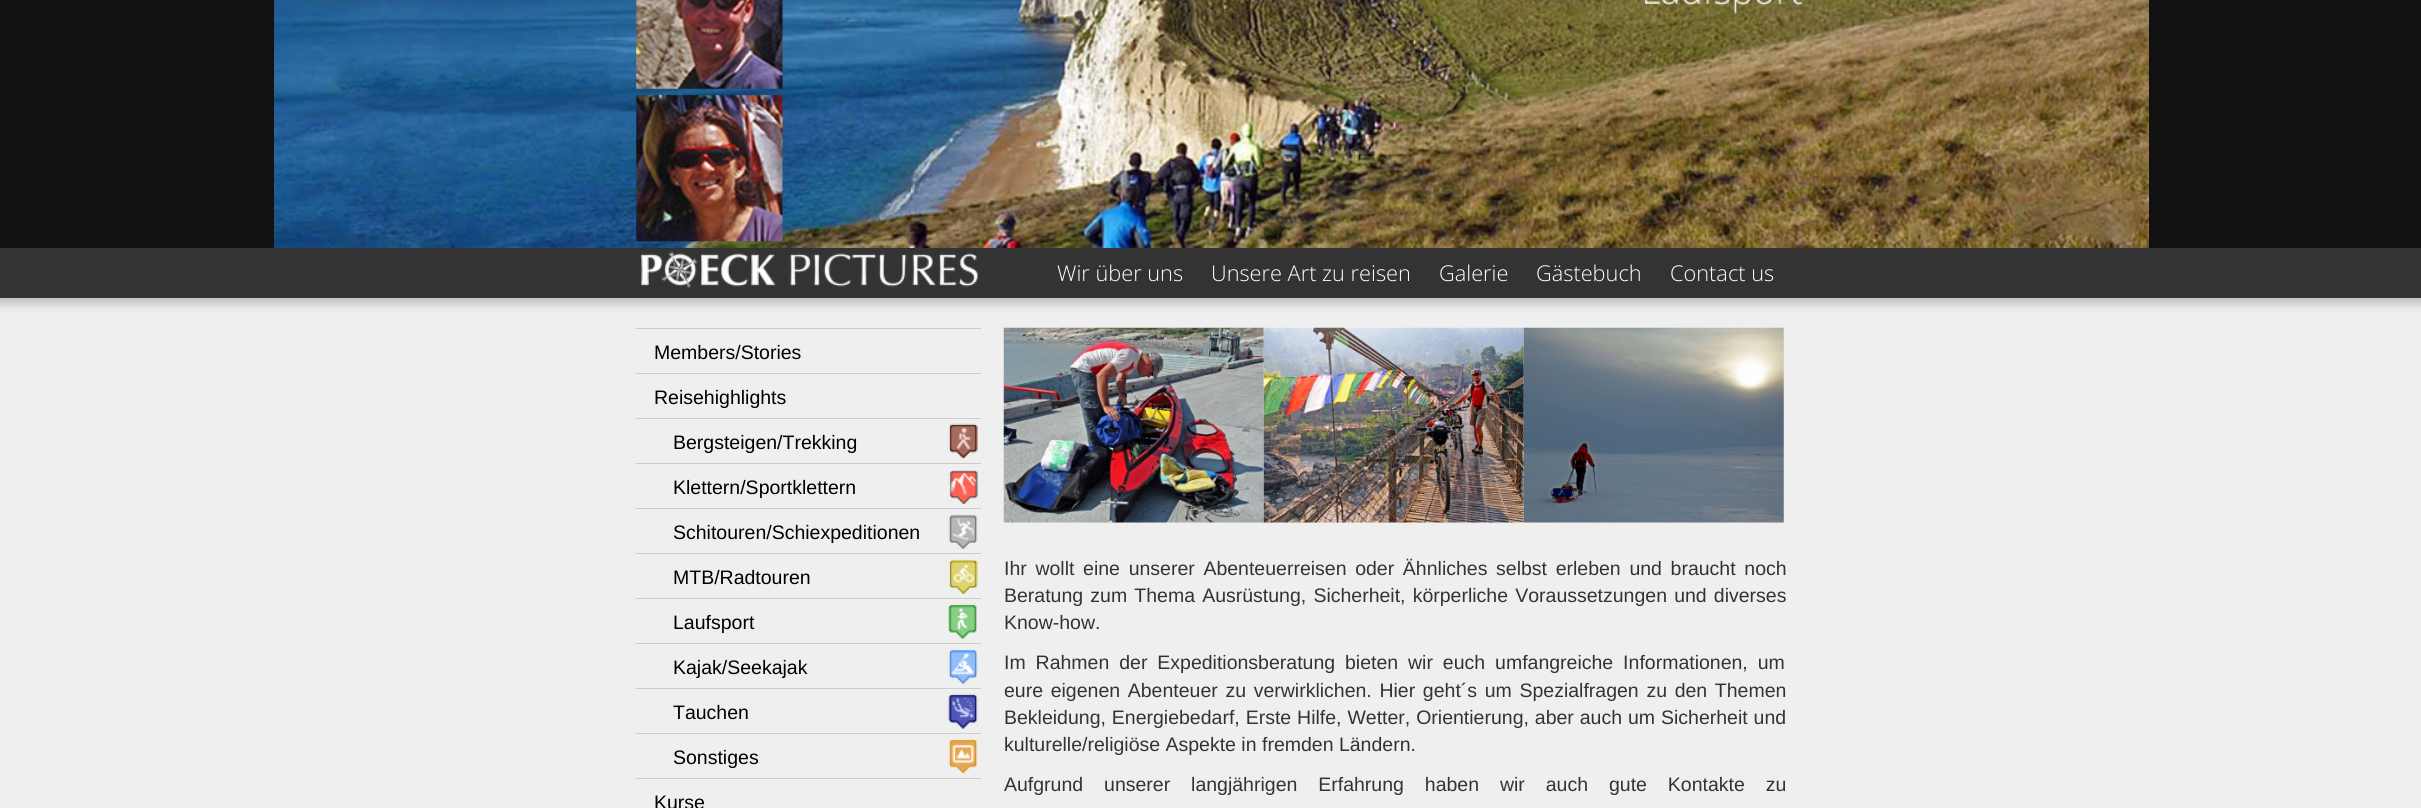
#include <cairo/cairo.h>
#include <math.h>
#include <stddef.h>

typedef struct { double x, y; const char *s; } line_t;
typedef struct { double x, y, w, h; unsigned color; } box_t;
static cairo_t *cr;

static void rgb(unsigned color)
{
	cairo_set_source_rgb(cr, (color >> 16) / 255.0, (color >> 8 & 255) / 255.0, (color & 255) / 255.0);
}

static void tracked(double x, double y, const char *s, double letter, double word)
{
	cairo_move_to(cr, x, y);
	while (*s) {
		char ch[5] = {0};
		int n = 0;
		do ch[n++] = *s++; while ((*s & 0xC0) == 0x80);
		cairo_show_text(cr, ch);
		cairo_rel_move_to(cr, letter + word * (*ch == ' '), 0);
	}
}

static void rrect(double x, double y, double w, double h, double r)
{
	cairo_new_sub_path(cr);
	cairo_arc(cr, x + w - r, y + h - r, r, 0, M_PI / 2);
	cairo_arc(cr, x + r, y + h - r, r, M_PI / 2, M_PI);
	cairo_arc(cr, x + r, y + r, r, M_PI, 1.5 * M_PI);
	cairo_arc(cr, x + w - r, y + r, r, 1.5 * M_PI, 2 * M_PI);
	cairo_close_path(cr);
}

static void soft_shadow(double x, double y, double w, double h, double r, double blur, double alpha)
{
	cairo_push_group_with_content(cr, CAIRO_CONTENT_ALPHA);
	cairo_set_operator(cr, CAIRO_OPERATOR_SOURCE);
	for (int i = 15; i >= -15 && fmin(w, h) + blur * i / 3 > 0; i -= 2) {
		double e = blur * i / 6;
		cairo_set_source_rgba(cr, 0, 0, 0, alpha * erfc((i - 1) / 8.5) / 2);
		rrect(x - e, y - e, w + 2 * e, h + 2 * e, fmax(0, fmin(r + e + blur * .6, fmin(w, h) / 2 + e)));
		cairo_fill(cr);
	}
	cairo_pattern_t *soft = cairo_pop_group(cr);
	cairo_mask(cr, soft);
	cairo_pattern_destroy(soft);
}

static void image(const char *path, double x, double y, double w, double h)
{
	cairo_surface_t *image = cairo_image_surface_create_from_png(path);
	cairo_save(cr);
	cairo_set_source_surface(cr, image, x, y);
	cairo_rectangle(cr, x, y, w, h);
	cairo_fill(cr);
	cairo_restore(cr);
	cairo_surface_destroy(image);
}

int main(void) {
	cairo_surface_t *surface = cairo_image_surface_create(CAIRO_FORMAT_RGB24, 2421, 808);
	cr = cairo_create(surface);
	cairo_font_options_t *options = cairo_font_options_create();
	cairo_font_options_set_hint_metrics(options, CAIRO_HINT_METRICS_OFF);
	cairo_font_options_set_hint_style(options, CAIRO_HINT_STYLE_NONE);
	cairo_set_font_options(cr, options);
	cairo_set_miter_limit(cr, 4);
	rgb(0xefefef);
	cairo_paint(cr);
	rgb(0x000000);
	soft_shadow(-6, 241, 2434, 63, 0, 5, 0.2);
	rgb(0x111111);
	cairo_rectangle(cr, 0, 0, 2421, 248);
	cairo_fill(cr);
	image("img/1.png", 274, 0, 1875, 248);
	image("img/2.png", 636, 0, 147, 242);
	rgb(0x333333);
	cairo_rectangle(cr, 0, 248, 2421, 50);
	cairo_fill(cr);
	image("img/3.png", 641, 251, 337, 37);
	{
		static const box_t items[] = {
			{636, 328, 345, 1, 0xcccccc},
			{636, 373, 345, 1, 0xcccccc},
			{636, 778, 345, 1, 0xcccccc},
			{636, 418, 345, 1, 0xcccccc},
			{636, 463, 345, 1, 0xcccccc},
		};
		for (size_t i = 0; i < sizeof items / sizeof *items; i++) {
			rgb(items[i].color);
			cairo_rectangle(cr, items[i].x, items[i].y, items[i].w, items[i].h);
			cairo_fill(cr);
		}
	}
	image("img/4.png", 948, 423, 30, 36);
	cairo_rectangle(cr, 636, 508, 345, 1);
	cairo_fill(cr);
	image("img/5.png", 949, 470, 29, 35);
	cairo_rectangle(cr, 636, 553, 345, 1);
	cairo_fill(cr);
	image("img/6.png", 948, 514, 30, 35);
	cairo_rectangle(cr, 636, 598, 345, 1);
	cairo_fill(cr);
	image("img/7.png", 948, 559, 30, 35);
	cairo_rectangle(cr, 636, 643, 345, 1);
	cairo_fill(cr);
	image("img/8.png", 948, 604, 29, 35);
	cairo_rectangle(cr, 636, 688, 345, 1);
	cairo_fill(cr);
	image("img/9.png", 948, 649, 30, 35);
	cairo_rectangle(cr, 636, 733, 345, 1);
	cairo_fill(cr);
	image("img/10.png", 948, 693, 31, 36);
	image("img/11.png", 948, 739, 30, 35);
	image("img/12.png", 1003, 327, 261, 196);
	image("img/13.png", 1263, 327, 261, 196);
	image("img/14.png", 1523, 327, 261, 196);
	cairo_select_font_face(cr, "Open Sans Light", CAIRO_FONT_SLANT_NORMAL, CAIRO_FONT_WEIGHT_NORMAL);
	cairo_set_font_size(cr, 21.75);
	rgb(0xffffff);
	{
		static const line_t items[] = {
			{1057, 281, "Wir über uns"},
			{1211, 281, "Unsere Art zu reisen"},
			{1439, 281, "Galerie"},
			{1536, 281, "Gästebuch"},
			{1670, 281, "Contact us"},
		};
		for (size_t i = 0; i < sizeof items / sizeof *items; i++) {
			cairo_move_to(cr, items[i].x, items[i].y);
			cairo_show_text(cr, items[i].s);
		}
	}
	cairo_select_font_face(cr, "Liberation Sans", CAIRO_FONT_SLANT_NORMAL, CAIRO_FONT_WEIGHT_NORMAL);
	cairo_set_font_size(cr, 19.5);
	rgb(0x000000);
	{
		static const line_t items[] = {
			{654, 359, "Members/Stories"},
			{654, 404, "Reisehighlights"},
			{673, 449, "Bergsteigen/Trekking"},
			{673, 494, "Klettern/Sportklettern"},
			{673, 539, "Schitouren/Schiexpeditionen"},
			{673, 584, "MTB/Radtouren"},
			{673, 629, "Laufsport"},
			{673, 674, "Kajak/Seekajak"},
			{673, 719, "Tauchen"},
			{673, 764, "Sonstiges"},
			{654, 809, "Kurse"},
		};
		for (size_t i = 0; i < sizeof items / sizeof *items; i++) {
			cairo_move_to(cr, items[i].x, items[i].y);
			cairo_show_text(cr, items[i].s);
		}
	}
	rgb(0x333333);
	tracked(1004, 575, "Ihr wollt eine unserer Abenteuerreisen oder Ähnliches selbst erleben und braucht noch", 0, 3.25);
	tracked(1004, 602, "Beratung zum Thema Ausrüstung, Sicherheit, körperliche Voraussetzungen und diverses", 0, 1.75);
	cairo_move_to(cr, 1004, 629);
	cairo_show_text(cr, "Know-how.");
	tracked(1004, 669, "Im Rahmen der Expeditionsberatung bieten wir euch umfangreiche Informationen, um", 0, 4.5);
	tracked(1004, 697, "eure eigenen Abenteuer zu verwirklichen. Hier geht´s um Spezialfragen zu den Themen", 0, 2.25);
	tracked(1004, 724, "Bekleidung, Energiebedarf, Erste Hilfe, Wetter, Orientierung, aber auch um Sicherheit und", 0, 0.5);
	cairo_move_to(cr, 1004, 751);
	cairo_show_text(cr, "kulturelle/religiöse Aspekte in fremden Ländern.");
	tracked(1004, 791, "Aufgrund unserer langjährigen Erfahrung haben wir auch gute Kontakte zu", 0, 15.5);
	cairo_surface_write_to_png(surface, "page.png");
	cairo_font_options_destroy(options);
	cairo_destroy(cr);
	cairo_surface_destroy(surface);
	return 0;
}
